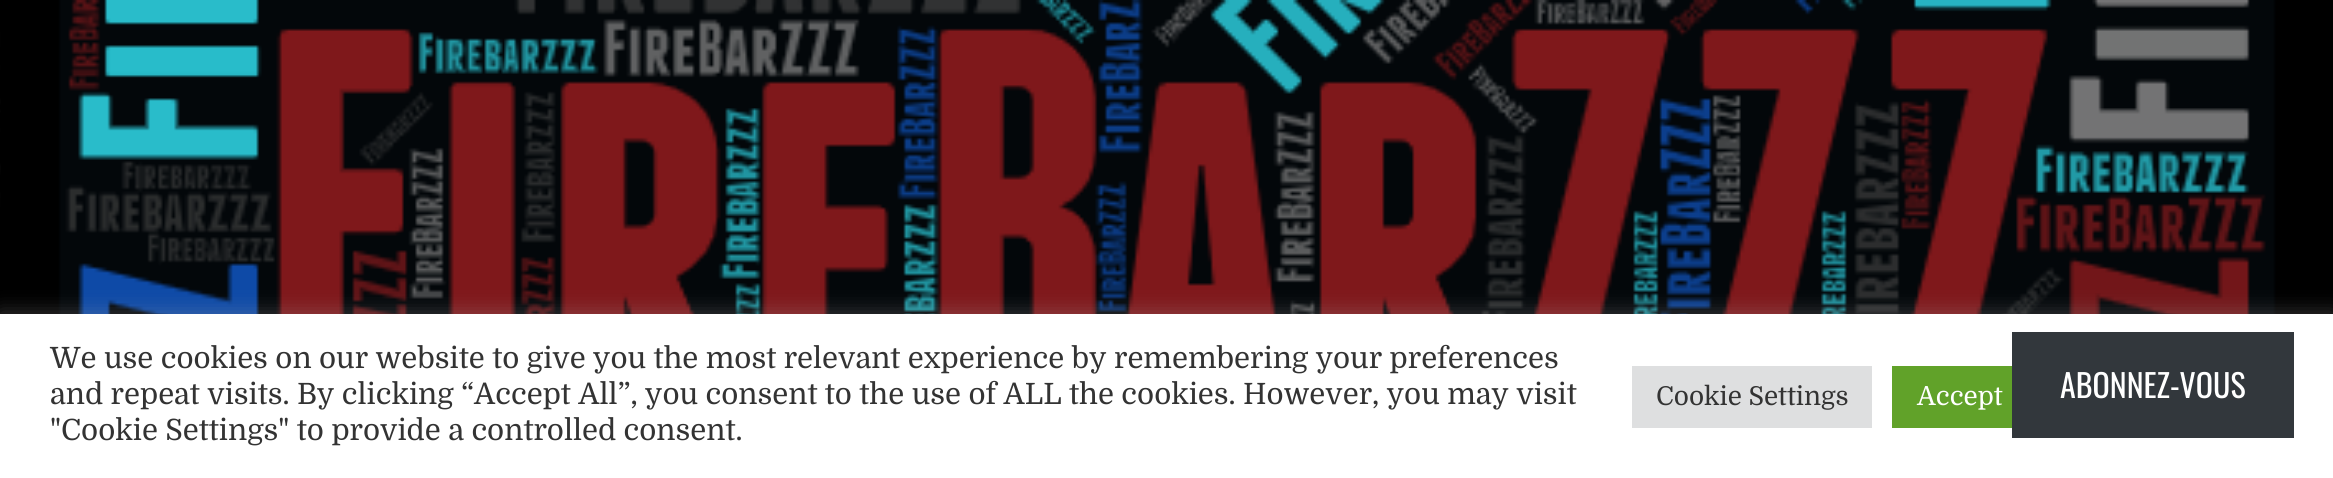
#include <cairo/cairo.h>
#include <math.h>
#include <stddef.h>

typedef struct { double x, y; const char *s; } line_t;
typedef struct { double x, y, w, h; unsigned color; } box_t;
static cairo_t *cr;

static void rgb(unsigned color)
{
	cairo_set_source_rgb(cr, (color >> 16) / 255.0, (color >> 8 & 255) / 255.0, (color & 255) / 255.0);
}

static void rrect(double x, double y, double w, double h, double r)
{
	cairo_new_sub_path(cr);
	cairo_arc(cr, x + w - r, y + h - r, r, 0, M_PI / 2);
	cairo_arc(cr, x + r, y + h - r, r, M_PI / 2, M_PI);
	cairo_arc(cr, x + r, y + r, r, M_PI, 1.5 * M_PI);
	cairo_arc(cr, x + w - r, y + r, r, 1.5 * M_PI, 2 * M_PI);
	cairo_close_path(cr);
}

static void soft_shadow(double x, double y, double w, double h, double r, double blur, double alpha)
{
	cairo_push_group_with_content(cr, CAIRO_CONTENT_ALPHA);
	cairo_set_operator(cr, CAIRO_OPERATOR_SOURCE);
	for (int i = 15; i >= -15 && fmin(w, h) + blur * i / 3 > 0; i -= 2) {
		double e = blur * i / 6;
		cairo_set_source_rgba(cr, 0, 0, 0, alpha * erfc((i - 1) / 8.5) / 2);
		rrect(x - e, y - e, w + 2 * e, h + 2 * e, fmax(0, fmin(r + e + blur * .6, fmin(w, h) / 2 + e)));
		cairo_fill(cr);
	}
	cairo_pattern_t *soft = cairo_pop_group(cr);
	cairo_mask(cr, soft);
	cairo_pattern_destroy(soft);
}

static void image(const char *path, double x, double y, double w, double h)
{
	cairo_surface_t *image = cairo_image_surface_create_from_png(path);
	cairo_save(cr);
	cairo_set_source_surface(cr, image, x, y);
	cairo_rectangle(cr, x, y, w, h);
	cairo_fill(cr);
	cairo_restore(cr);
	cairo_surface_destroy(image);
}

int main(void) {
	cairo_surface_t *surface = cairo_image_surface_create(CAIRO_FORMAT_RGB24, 2333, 478);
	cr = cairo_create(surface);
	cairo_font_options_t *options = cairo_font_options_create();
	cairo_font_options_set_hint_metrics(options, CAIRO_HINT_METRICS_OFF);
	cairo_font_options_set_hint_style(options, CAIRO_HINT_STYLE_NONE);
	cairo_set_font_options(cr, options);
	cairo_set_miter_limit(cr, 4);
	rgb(0xffffff);
	cairo_paint(cr);
	image("img/1.png", 0, 0, 1, 314);
	image("img/2.png", 1, 0, 2332, 314);
	rgb(0xacabab);
	soft_shadow(0, 312, 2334, 164, 0, 10, 0.3);
	{
		static const box_t items[] = {
			{0, 314, 2333, 164, 0xffffff},
			{1632, 366, 240, 62, 0xdedfe0},
			{1892, 366, 120, 62, 0x61a229},
			{2012, 332, 282, 106, 0x32373c},
		};
		for (size_t i = 0; i < sizeof items / sizeof *items; i++) {
			rgb(items[i].color);
			cairo_rectangle(cr, items[i].x, items[i].y, items[i].w, items[i].h);
			cairo_fill(cr);
		}
	}
	cairo_select_font_face(cr, "Domine", CAIRO_FONT_SLANT_NORMAL, CAIRO_FONT_WEIGHT_NORMAL);
	cairo_set_font_size(cr, 29.33);
	rgb(0x333333);
	{
		static const line_t items[] = {
			{50, 368, "We use cookies on our website to give you the most relevant experience by remembering your preferences"},
			{50, 404, "and repeat visits. By clicking “Accept All”, you consent to the use of ALL the cookies. However, you may visit"},
			{50, 440, "\"Cookie Settings\" to provide a controlled consent."},
		};
		for (size_t i = 0; i < sizeof items / sizeof *items; i++) {
			cairo_move_to(cr, items[i].x, items[i].y);
			cairo_show_text(cr, items[i].s);
		}
	}
	cairo_set_font_size(cr, 26);
	cairo_move_to(cr, 1656, 405);
	cairo_show_text(cr, "Cookie Settings");
	rgb(0xffffff);
	cairo_move_to(cr, 1917, 405);
	cairo_show_text(cr, "Accept");
	cairo_select_font_face(cr, "Oswald", CAIRO_FONT_SLANT_NORMAL, CAIRO_FONT_WEIGHT_NORMAL);
	cairo_set_font_size(cr, 32);
	cairo_move_to(cr, 2060, 398);
	cairo_show_text(cr, "ABONNEZ-VOUS");
	cairo_surface_write_to_png(surface, "page.png");
	cairo_font_options_destroy(options);
	cairo_destroy(cr);
	cairo_surface_destroy(surface);
	return 0;
}
